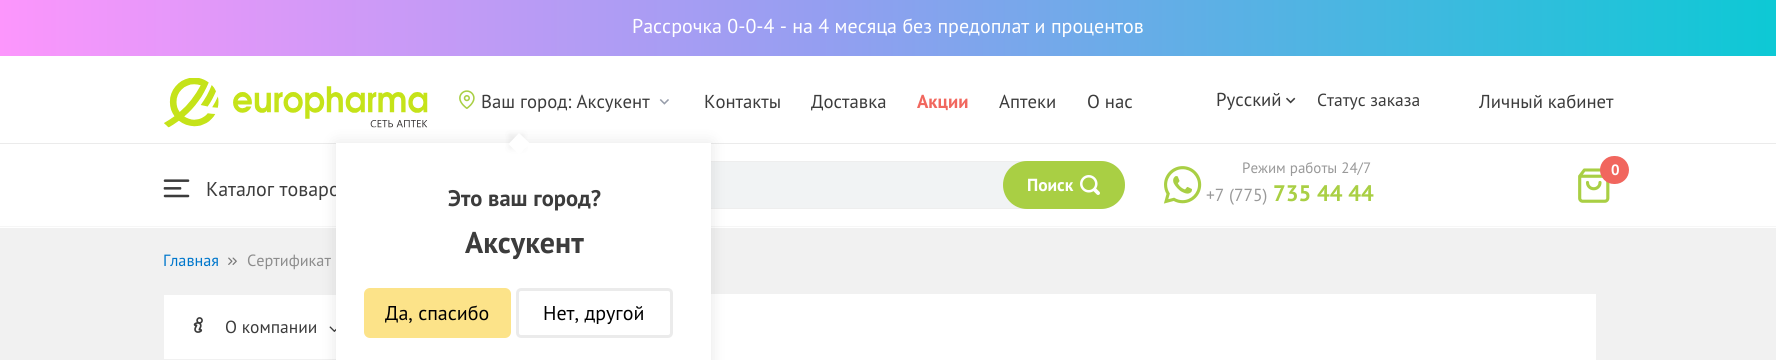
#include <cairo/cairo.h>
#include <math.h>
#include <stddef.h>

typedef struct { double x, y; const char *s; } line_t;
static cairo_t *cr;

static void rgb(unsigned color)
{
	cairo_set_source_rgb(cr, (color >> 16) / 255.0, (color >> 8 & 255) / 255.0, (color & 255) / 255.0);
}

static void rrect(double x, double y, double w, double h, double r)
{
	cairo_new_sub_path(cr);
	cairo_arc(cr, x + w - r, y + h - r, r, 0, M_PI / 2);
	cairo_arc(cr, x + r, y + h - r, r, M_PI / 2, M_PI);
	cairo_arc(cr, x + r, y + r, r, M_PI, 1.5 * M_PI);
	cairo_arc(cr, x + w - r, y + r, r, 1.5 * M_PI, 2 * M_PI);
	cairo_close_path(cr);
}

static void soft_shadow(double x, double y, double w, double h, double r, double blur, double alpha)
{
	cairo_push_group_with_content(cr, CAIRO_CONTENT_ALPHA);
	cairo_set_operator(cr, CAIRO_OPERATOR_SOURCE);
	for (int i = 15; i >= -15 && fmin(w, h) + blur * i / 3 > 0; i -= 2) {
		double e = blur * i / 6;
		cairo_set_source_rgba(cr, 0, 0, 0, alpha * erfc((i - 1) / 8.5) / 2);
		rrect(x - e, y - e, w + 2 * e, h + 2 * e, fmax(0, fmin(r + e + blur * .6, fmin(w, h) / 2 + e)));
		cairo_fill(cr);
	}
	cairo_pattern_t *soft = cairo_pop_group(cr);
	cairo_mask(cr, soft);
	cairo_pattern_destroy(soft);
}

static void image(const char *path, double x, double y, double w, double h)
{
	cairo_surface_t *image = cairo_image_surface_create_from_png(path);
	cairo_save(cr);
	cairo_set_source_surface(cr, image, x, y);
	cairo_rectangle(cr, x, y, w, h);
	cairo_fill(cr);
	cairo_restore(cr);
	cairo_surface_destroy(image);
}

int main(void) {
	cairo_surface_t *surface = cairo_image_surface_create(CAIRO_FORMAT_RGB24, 1776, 360);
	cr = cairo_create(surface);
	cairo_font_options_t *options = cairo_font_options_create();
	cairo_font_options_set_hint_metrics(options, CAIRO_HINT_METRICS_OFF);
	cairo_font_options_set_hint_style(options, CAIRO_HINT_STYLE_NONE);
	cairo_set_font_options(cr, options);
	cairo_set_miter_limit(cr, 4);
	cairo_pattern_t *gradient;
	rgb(0xf1f1f1);
	cairo_paint(cr);
	gradient = cairo_pattern_create_linear(0, 29, 1776, 27);
	cairo_pattern_add_color_stop_rgba(gradient, 0, 0.988, 0.588, 0.988, 1);
	cairo_pattern_add_color_stop_rgba(gradient, 0.46, 0.584, 0.62, 0.945, 1);
	cairo_pattern_add_color_stop_rgba(gradient, 1, 0.051, 0.788, 0.835, 1);
	cairo_set_source(cr, gradient);
	cairo_pattern_destroy(gradient);
	cairo_rectangle(cr, 0, 0, 1776, 56);
	cairo_fill(cr);
	rgb(0xffffff);
	cairo_rectangle(cr, 0, 56, 1776, 172);
	cairo_fill(cr);
	rgb(0xebebeb);
	cairo_rectangle(cr, 0, 143, 1776, 1);
	cairo_fill(cr);
	image("img/1.png", 164, 78, 264, 50);
	image("img/2.png", 459, 90, 16, 19);
	image("img/3.png", 659, 99, 10, 6);
	rgb(0xf6f6f6);
	cairo_rectangle(cr, 0, 226, 1776, 1);
	cairo_fill(cr);
	rgb(0xf1f3f4);
	rrect(450.5, 161.5, 674, 47, 23.5);
	cairo_fill_preserve(cr);
	rgb(0xeeeeee);
	cairo_set_line_width(cr, 1);
	cairo_stroke(cr);
	rgb(0xffffff);
	cairo_rectangle(cr, 164, 295, 172, 64);
	cairo_fill(cr);
	image("img/11.png", 329, 326, 7, 6);
	cairo_rectangle(cr, 711, 294, 885, 66);
	cairo_fill(cr);
	rgb(0x000000);
	soft_shadow(336, 143, 375, 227, 0, 7.5, 0.1);
	image("img/4.png", 1286, 97, 10, 7);
	image("img/5.png", 1163, 166, 39, 38);
	image("img/6.png", 1578, 168, 32, 35);
	rgb(0xf1665e);
	rrect(1600, 156, 29, 28, 14);
	cairo_fill(cr);
	image("img/7.png", 163, 179, 27, 19);
	rgb(0xa9cf44);
	rrect(1003, 161, 122, 48, 24);
	cairo_fill(cr);
	image("img/8.png", 1080, 175, 20, 20);
	image("img/9.png", 228, 257, 9, 8);
	image("img/10.png", 193, 317, 10, 16);
	cairo_select_font_face(cr, "PT Sans", CAIRO_FONT_SLANT_NORMAL, CAIRO_FONT_WEIGHT_NORMAL);
	cairo_set_font_size(cr, 20);
	rgb(0xffffff);
	cairo_move_to(cr, 632, 33);
	cairo_show_text(cr, "Рассрочка 0-0-4 - на 4 месяца без предоплат и процентов");
	cairo_set_font_size(cr, 18.75);
	rgb(0x3c3c3c);
	{
		static const line_t items[] = {
			{481, 108, "Ваш город: Аксукент"},
			{704, 108, "Контакты"},
			{811, 108, "Доставка"},
		};
		for (size_t i = 0; i < sizeof items / sizeof *items; i++) {
			cairo_move_to(cr, items[i].x, items[i].y);
			cairo_show_text(cr, items[i].s);
		}
	}
	cairo_select_font_face(cr, "PT Sans", CAIRO_FONT_SLANT_NORMAL, CAIRO_FONT_WEIGHT_BOLD);
	rgb(0xf1675e);
	cairo_move_to(cr, 917, 108);
	cairo_show_text(cr, "Акции");
	cairo_select_font_face(cr, "PT Sans", CAIRO_FONT_SLANT_NORMAL, CAIRO_FONT_WEIGHT_NORMAL);
	rgb(0x3c3c3c);
	{
		static const line_t items[] = {
			{999, 108, "Аптеки"},
			{1087, 108, "О нас"},
			{1216, 106, "Русский"},
		};
		for (size_t i = 0; i < sizeof items / sizeof *items; i++) {
			cairo_move_to(cr, items[i].x, items[i].y);
			cairo_show_text(cr, items[i].s);
		}
	}
	cairo_set_font_size(cr, 17.5);
	cairo_move_to(cr, 1317, 106);
	cairo_show_text(cr, "Статус заказа");
	cairo_set_font_size(cr, 18.75);
	cairo_move_to(cr, 1479, 108);
	cairo_show_text(cr, "Личный кабинет");
	cairo_set_font_size(cr, 15);
	rgb(0x999999);
	cairo_move_to(cr, 1242, 173);
	cairo_show_text(cr, "Режим работы 24/7");
	cairo_set_font_size(cr, 17.5);
	cairo_move_to(cr, 1206, 201);
	cairo_show_text(cr, "+7 (775)");
	cairo_select_font_face(cr, "PT Sans", CAIRO_FONT_SLANT_NORMAL, CAIRO_FONT_WEIGHT_BOLD);
	cairo_set_font_size(cr, 22.5);
	rgb(0xa9cf44);
	cairo_move_to(cr, 1273, 201);
	cairo_show_text(cr, "735 44 44");
	cairo_set_font_size(cr, 15);
	rgb(0xffffff);
	cairo_move_to(cr, 1611, 175);
	cairo_show_text(cr, "0");
	cairo_select_font_face(cr, "PT Sans", CAIRO_FONT_SLANT_NORMAL, CAIRO_FONT_WEIGHT_NORMAL);
	cairo_set_font_size(cr, 20);
	rgb(0x3c3c3c);
	cairo_move_to(cr, 206, 196);
	cairo_show_text(cr, "Каталог товаро");
	rgb(0xffffff);
	cairo_rectangle(cr, 336, 143, 375, 217);
	cairo_fill(cr);
	rgb(0x000000);
	soft_shadow(509, 134, 15, 15, 0, 3, 0.06);
	rgb(0xffffff);
	cairo_new_path(cr);
	cairo_move_to(cr, 519, 133);
	cairo_line_to(cr, 530, 143.5);
	cairo_line_to(cr, 519, 154.5);
	cairo_line_to(cr, 508.5, 144);
	cairo_close_path(cr);
	cairo_fill(cr);
	rrect(517.5, 289.5, 154, 47, 3.5);
	rgb(0xebebeb);
	cairo_set_line_width(cr, 3);
	cairo_stroke(cr);
	rgb(0x000000);
	cairo_move_to(cr, 543, 320);
	cairo_show_text(cr, "Нет, другой");
	rgb(0xfce389);
	rrect(365.5, 289.5, 144, 47, 4.5);
	cairo_fill_preserve(cr);
	cairo_stroke(cr);
	rgb(0x000000);
	cairo_move_to(cr, 385, 320);
	cairo_show_text(cr, "Да, спасибо");
	cairo_select_font_face(cr, "PT Sans", CAIRO_FONT_SLANT_NORMAL, CAIRO_FONT_WEIGHT_BOLD);
	cairo_set_font_size(cr, 30);
	rgb(0x3c3c3c);
	cairo_move_to(cr, 465, 253);
	cairo_show_text(cr, "Аксукент");
	cairo_set_font_size(cr, 22.5);
	cairo_move_to(cr, 448, 206);
	cairo_show_text(cr, "Это ваш город?");
	cairo_set_font_size(cr, 17.5);
	rgb(0xffffff);
	cairo_move_to(cr, 1027, 191);
	cairo_show_text(cr, "Поиск");
	cairo_select_font_face(cr, "PT Sans", CAIRO_FONT_SLANT_NORMAL, CAIRO_FONT_WEIGHT_NORMAL);
	cairo_set_font_size(cr, 16.25);
	rgb(0x0077cc);
	cairo_move_to(cr, 163, 266);
	cairo_show_text(cr, "Главная");
	rgb(0x8d8d8d);
	cairo_move_to(cr, 247, 266);
	cairo_show_text(cr, "Сертификат");
	cairo_set_font_size(cr, 17.5);
	rgb(0x3c3c3c);
	cairo_move_to(cr, 225, 333);
	cairo_show_text(cr, "О компании");
	cairo_surface_write_to_png(surface, "page.png");
	cairo_font_options_destroy(options);
	cairo_destroy(cr);
	cairo_surface_destroy(surface);
	return 0;
}
